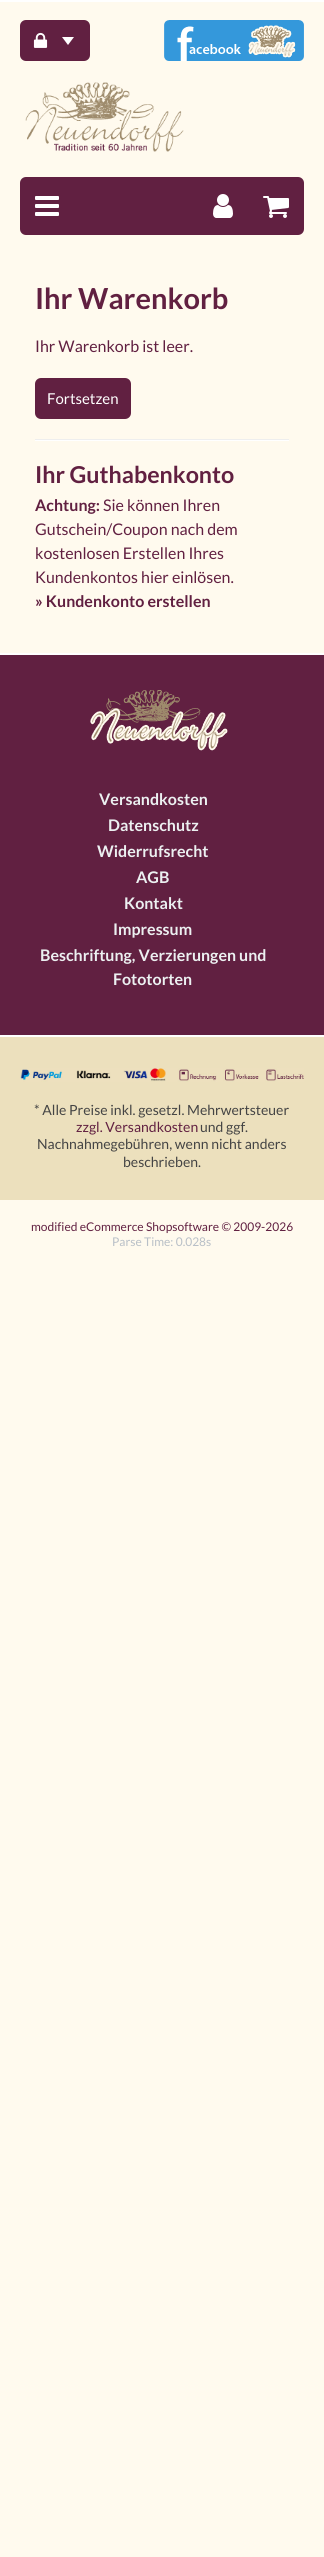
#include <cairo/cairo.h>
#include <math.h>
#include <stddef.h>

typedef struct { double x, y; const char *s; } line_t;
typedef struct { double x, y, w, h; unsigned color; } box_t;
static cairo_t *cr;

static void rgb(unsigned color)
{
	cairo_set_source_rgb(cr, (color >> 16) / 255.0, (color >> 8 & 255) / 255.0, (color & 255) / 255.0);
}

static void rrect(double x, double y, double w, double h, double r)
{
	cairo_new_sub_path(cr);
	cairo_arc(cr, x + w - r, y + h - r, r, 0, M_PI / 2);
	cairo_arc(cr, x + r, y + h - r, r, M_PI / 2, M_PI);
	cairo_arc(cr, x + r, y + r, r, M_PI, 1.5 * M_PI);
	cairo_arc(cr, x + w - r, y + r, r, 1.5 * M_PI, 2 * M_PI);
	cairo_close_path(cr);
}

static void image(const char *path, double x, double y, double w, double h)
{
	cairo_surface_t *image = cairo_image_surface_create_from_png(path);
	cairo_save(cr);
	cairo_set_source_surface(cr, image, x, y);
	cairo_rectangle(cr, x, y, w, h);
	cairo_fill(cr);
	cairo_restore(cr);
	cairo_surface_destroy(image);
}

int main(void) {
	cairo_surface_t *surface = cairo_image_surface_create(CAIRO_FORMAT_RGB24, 324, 2557);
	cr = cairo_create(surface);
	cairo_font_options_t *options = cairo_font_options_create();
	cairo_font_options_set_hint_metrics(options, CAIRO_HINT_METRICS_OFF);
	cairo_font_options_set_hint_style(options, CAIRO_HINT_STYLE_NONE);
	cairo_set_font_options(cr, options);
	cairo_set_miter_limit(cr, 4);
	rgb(0xfffaee);
	cairo_paint(cr);
	rgb(0xffffff);
	cairo_rectangle(cr, 0, 0, 324, 2);
	cairo_fill(cr);
	rgb(0x612041);
	rrect(20, 20, 70, 41, 6);
	cairo_fill(cr);
	image("img/1.png", 33, 32, 15, 16);
	rgb(0xffffff);
	cairo_new_path(cr);
	cairo_move_to(cr, 62, 37);
	cairo_line_to(cr, 74, 37);
	cairo_line_to(cr, 68, 45);
	cairo_close_path(cr);
	cairo_fill(cr);
	image("img/2.png", 164, 20, 140, 41);
	image("img/3.png", 25, 82, 159, 70);
	rgb(0x612041);
	rrect(20, 177, 284, 58, 6);
	cairo_fill(cr);
	image("img/4.png", 35, 196, 24, 20);
	image("img/5.png", 213, 194, 20, 24);
	image("img/6.png", 263, 196, 26, 22);
	rrect(35, 378, 96, 41, 6);
	cairo_fill(cr);
	{
		static const box_t items[] = {
			{35, 439, 254, 1, 0xeeeeee},
			{35, 440, 254, 1, 0xffffff},
			{0, 655, 324, 380, 0x612041},
			{0, 653, 324, 2, 0xffffff},
		};
		for (size_t i = 0; i < sizeof items / sizeof *items; i++) {
			rgb(items[i].color);
			cairo_rectangle(cr, items[i].x, items[i].y, items[i].w, items[i].h);
			cairo_fill(cr);
		}
	}
	image("img/7.png", 90, 690, 138, 61);
	rgb(0xece0bd);
	cairo_rectangle(cr, 0, 1037, 324, 163);
	cairo_fill(cr);
	rgb(0xffffff);
	cairo_rectangle(cr, 0, 1035, 324, 2);
	cairo_fill(cr);
	image("img/8.png", 20, 1068, 284, 14);
	cairo_select_font_face(cr, "Lato", CAIRO_FONT_SLANT_NORMAL, CAIRO_FONT_WEIGHT_BOLD);
	cairo_set_font_size(cr, 29);
	rgb(0x612041);
	cairo_move_to(cr, 35, 309);
	cairo_show_text(cr, "Ihr Warenkorb");
	cairo_select_font_face(cr, "Lato", CAIRO_FONT_SLANT_NORMAL, CAIRO_FONT_WEIGHT_NORMAL);
	cairo_set_font_size(cr, 16);
	cairo_move_to(cr, 35, 352);
	cairo_show_text(cr, "Ihr Warenkorb ist leer.");
	cairo_set_font_size(cr, 15);
	rgb(0xffffff);
	cairo_move_to(cr, 47, 404);
	cairo_show_text(cr, "Fortsetzen");
	cairo_select_font_face(cr, "Lato", CAIRO_FONT_SLANT_NORMAL, CAIRO_FONT_WEIGHT_BOLD);
	cairo_set_font_size(cr, 23.25);
	rgb(0x612041);
	cairo_move_to(cr, 35, 483);
	cairo_show_text(cr, "Ihr Guthabenkonto");
	cairo_set_font_size(cr, 16);
	cairo_move_to(cr, 35, 511);
	cairo_show_text(cr, "Achtung:");
	cairo_select_font_face(cr, "Lato", CAIRO_FONT_SLANT_NORMAL, CAIRO_FONT_WEIGHT_NORMAL);
	{
		static const line_t items[] = {
			{103, 511, "Sie können Ihren"},
			{35, 535, "Gutschein/Coupon nach dem"},
			{35, 559, "kostenlosen Erstellen Ihres"},
			{35, 583, "Kundenkontos hier einlösen."},
		};
		for (size_t i = 0; i < sizeof items / sizeof *items; i++) {
			cairo_move_to(cr, items[i].x, items[i].y);
			cairo_show_text(cr, items[i].s);
		}
	}
	cairo_select_font_face(cr, "Lato", CAIRO_FONT_SLANT_NORMAL, CAIRO_FONT_WEIGHT_BOLD);
	cairo_move_to(cr, 35, 607);
	cairo_show_text(cr, "» Kundenkonto erstellen");
	rgb(0xecf0f1);
	{
		static const line_t items[] = {
			{99, 805, "Versandkosten"},
			{108, 831, "Datenschutz"},
			{97, 857, "Widerrufsrecht"},
			{136, 883, "AGB"},
			{124, 909, "Kontakt"},
			{113, 935, "Impressum"},
			{40, 961, "Beschriftung, Verzierungen und"},
			{113, 985, "Fototorten"},
		};
		for (size_t i = 0; i < sizeof items / sizeof *items; i++) {
			cairo_move_to(cr, items[i].x, items[i].y);
			cairo_show_text(cr, items[i].s);
		}
	}
	cairo_select_font_face(cr, "Lato", CAIRO_FONT_SLANT_NORMAL, CAIRO_FONT_WEIGHT_NORMAL);
	cairo_set_font_size(cr, 14);
	rgb(0x444444);
	cairo_move_to(cr, 34, 1115);
	cairo_show_text(cr, "* Alle Preise inkl. gesetzl. Mehrwertsteuer");
	rgb(0x612041);
	cairo_move_to(cr, 76, 1132);
	cairo_show_text(cr, "zzgl. Versandkosten");
	rgb(0x444444);
	{
		static const line_t items[] = {
			{200, 1132, "und ggf."},
			{37, 1149, "Nachnahmegebühren, wenn nicht anders"},
			{123, 1167, "beschrieben."},
		};
		for (size_t i = 0; i < sizeof items / sizeof *items; i++) {
			cairo_move_to(cr, items[i].x, items[i].y);
			cairo_show_text(cr, items[i].s);
		}
	}
	cairo_set_font_size(cr, 12);
	rgb(0x612041);
	cairo_move_to(cr, 31, 1231);
	cairo_show_text(cr, "modified eCommerce Shopsoftware © 2009-2026");
	rgb(0xb8bfc7);
	cairo_move_to(cr, 112, 1246);
	cairo_show_text(cr, "Parse Time: 0.028s");
	cairo_surface_write_to_png(surface, "page.png");
	cairo_font_options_destroy(options);
	cairo_destroy(cr);
	cairo_surface_destroy(surface);
	return 0;
}
